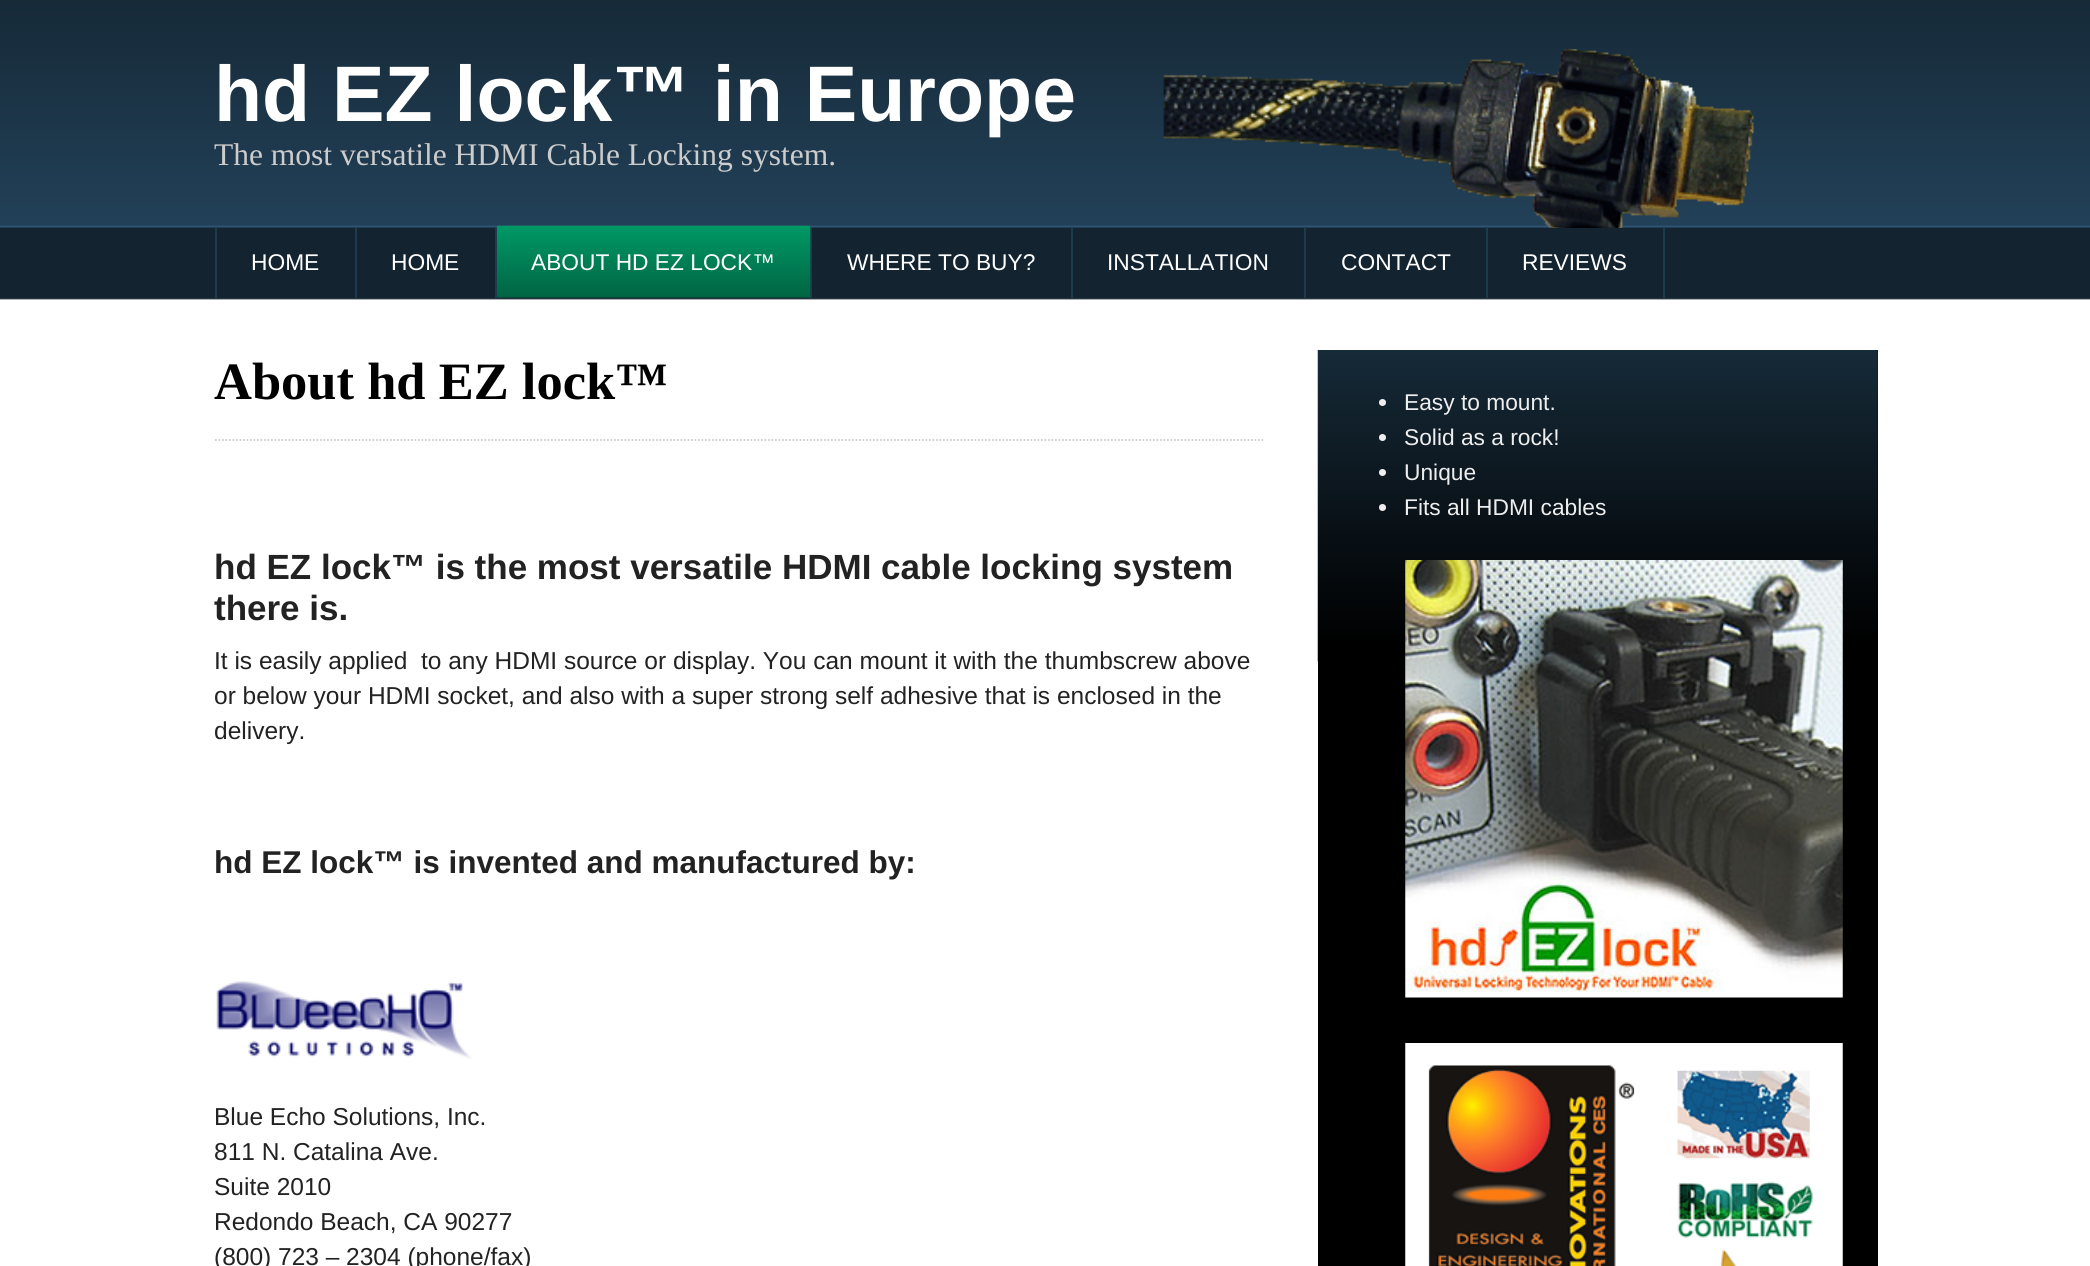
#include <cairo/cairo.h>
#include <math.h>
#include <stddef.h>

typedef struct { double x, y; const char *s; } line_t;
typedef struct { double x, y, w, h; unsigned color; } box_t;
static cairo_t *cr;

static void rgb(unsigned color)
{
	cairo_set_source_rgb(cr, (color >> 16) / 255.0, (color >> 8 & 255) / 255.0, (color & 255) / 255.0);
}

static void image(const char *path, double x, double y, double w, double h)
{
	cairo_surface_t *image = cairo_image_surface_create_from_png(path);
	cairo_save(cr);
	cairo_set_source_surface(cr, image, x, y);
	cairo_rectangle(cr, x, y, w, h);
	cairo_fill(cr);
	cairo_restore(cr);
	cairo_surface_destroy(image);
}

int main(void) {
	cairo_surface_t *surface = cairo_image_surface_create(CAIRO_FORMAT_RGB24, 2090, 1266);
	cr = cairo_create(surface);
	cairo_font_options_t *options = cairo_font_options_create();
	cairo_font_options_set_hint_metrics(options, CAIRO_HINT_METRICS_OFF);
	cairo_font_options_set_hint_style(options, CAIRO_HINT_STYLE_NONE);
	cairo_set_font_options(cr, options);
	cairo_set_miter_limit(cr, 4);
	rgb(0xffffff);
	cairo_paint(cr);
	image("img/1.png", 0, 0, 2090, 300);
	image("img/2.png", 1163, 49, 591, 179);
	{
		static const box_t items[] = {
			{355, 228, 2, 70, 0x1e3a4e},
			{215, 228, 2, 70, 0x1e3a4e},
			{495, 228, 2, 70, 0x1e3a4e},
			{810, 228, 2, 70, 0x1e3a4e},
		};
		for (size_t i = 0; i < sizeof items / sizeof *items; i++) {
			rgb(items[i].color);
			cairo_rectangle(cr, items[i].x, items[i].y, items[i].w, items[i].h);
			cairo_fill(cr);
		}
	}
	image("img/3.png", 497, 225, 314, 73);
	{
		static const box_t items[] = {
			{1071, 228, 2, 70, 0x1e3a4e},
			{1304, 228, 2, 70, 0x1e3a4e},
			{1486, 228, 2, 70, 0x1e3a4e},
			{1663, 228, 2, 70, 0x1e3a4e},
		};
		for (size_t i = 0; i < sizeof items / sizeof *items; i++) {
			rgb(items[i].color);
			cairo_rectangle(cr, items[i].x, items[i].y, items[i].w, items[i].h);
			cairo_fill(cr);
		}
	}
	cairo_new_path(cr);
	cairo_move_to(cr, 215, 440);
	cairo_line_to(cr, 1265, 440);
	rgb(0xcccccc);
	cairo_set_line_width(cr, 1.8);
	cairo_set_dash(cr, (double[]){1.75, 1.75}, 2, 0);
	cairo_stroke(cr);
	image("img/4.png", 216, 981, 256, 78);
	rgb(0x000000);
	cairo_rectangle(cr, 1318, 350, 560, 916);
	cairo_fill(cr);
	image("img/5.png", 1317, 350, 561, 312);
	rgb(0xeeeeee);
	cairo_arc(cr, 1382.5, 402.5, 3.5, 0, 2 * M_PI);
	cairo_fill(cr);
	cairo_arc(cr, 1382.5, 437.5, 3.5, 0, 2 * M_PI);
	cairo_fill(cr);
	cairo_arc(cr, 1382.5, 472.5, 3.5, 0, 2 * M_PI);
	cairo_fill(cr);
	cairo_arc(cr, 1382.5, 507.5, 3.5, 0, 2 * M_PI);
	cairo_fill(cr);
	image("img/6.png", 1405, 560, 438, 438);
	image("img/7.png", 1405, 1043, 438, 223);
	cairo_select_font_face(cr, "Liberation Sans", CAIRO_FONT_SLANT_NORMAL, CAIRO_FONT_WEIGHT_BOLD);
	cairo_set_font_size(cr, 78.75);
	rgb(0xffffff);
	cairo_move_to(cr, 214, 121);
	cairo_show_text(cr, "hd EZ lock™ in Europe");
	cairo_select_font_face(cr, "Liberation Serif", CAIRO_FONT_SLANT_NORMAL, CAIRO_FONT_WEIGHT_NORMAL);
	cairo_set_font_size(cr, 31.5);
	rgb(0xcccccc);
	cairo_move_to(cr, 214, 165);
	cairo_show_text(cr, "The most versatile HDMI Cable Locking system.");
	cairo_select_font_face(cr, "Liberation Sans", CAIRO_FONT_SLANT_NORMAL, CAIRO_FONT_WEIGHT_NORMAL);
	cairo_set_font_size(cr, 22.75);
	rgb(0xffffff);
	{
		static const line_t items[] = {
			{251, 270, "HOME"},
			{391, 270, "HOME"},
			{531, 270, "ABOUT HD EZ LOCK™"},
			{847, 270, "WHERE TO BUY?"},
			{1107, 270, "INSTALLATION"},
			{1341, 270, "CONTACT"},
			{1522, 270, "REVIEWS"},
		};
		for (size_t i = 0; i < sizeof items / sizeof *items; i++) {
			cairo_move_to(cr, items[i].x, items[i].y);
			cairo_show_text(cr, items[i].s);
		}
	}
	cairo_select_font_face(cr, "Liberation Serif", CAIRO_FONT_SLANT_NORMAL, CAIRO_FONT_WEIGHT_BOLD);
	cairo_set_font_size(cr, 52.5);
	rgb(0x000000);
	cairo_move_to(cr, 214, 399);
	cairo_show_text(cr, "About hd EZ lock™");
	cairo_select_font_face(cr, "Liberation Sans", CAIRO_FONT_SLANT_NORMAL, CAIRO_FONT_WEIGHT_BOLD);
	cairo_set_font_size(cr, 35);
	rgb(0x222222);
	cairo_move_to(cr, 214, 579);
	cairo_show_text(cr, "hd EZ lock™ is the most versatile HDMI cable locking system");
	cairo_move_to(cr, 214, 620);
	cairo_show_text(cr, "there is.");
	cairo_select_font_face(cr, "Liberation Sans", CAIRO_FONT_SLANT_NORMAL, CAIRO_FONT_WEIGHT_NORMAL);
	cairo_set_font_size(cr, 24.5);
	{
		static const line_t items[] = {
			{214, 669, "It is easily applied  to any HDMI source or display. You can mount it with the thumbscrew above"},
			{214, 704, "or below your HDMI socket, and also with a super strong self adhesive that is enclosed in the"},
			{214, 739, "delivery."},
		};
		for (size_t i = 0; i < sizeof items / sizeof *items; i++) {
			cairo_move_to(cr, items[i].x, items[i].y);
			cairo_show_text(cr, items[i].s);
		}
	}
	cairo_select_font_face(cr, "Liberation Sans", CAIRO_FONT_SLANT_NORMAL, CAIRO_FONT_WEIGHT_BOLD);
	cairo_set_font_size(cr, 31.5);
	cairo_move_to(cr, 214, 873);
	cairo_show_text(cr, "hd EZ lock™ is invented and manufactured by:");
	cairo_select_font_face(cr, "Liberation Sans", CAIRO_FONT_SLANT_NORMAL, CAIRO_FONT_WEIGHT_NORMAL);
	cairo_set_font_size(cr, 24.5);
	{
		static const line_t items[] = {
			{214, 1125, "Blue Echo Solutions, Inc."},
			{214, 1160, "811 N. Catalina Ave."},
			{214, 1195, "Suite 2010"},
			{214, 1230, "Redondo Beach, CA 90277"},
			{214, 1265, "(800) 723 – 2304 (phone/fax)"},
		};
		for (size_t i = 0; i < sizeof items / sizeof *items; i++) {
			cairo_move_to(cr, items[i].x, items[i].y);
			cairo_show_text(cr, items[i].s);
		}
	}
	cairo_set_font_size(cr, 22.75);
	rgb(0xeeeeee);
	{
		static const line_t items[] = {
			{1404, 410, "Easy to mount."},
			{1404, 445, "Solid as a rock!"},
			{1404, 480, "Unique"},
			{1404, 515, "Fits all HDMI cables"},
		};
		for (size_t i = 0; i < sizeof items / sizeof *items; i++) {
			cairo_move_to(cr, items[i].x, items[i].y);
			cairo_show_text(cr, items[i].s);
		}
	}
	cairo_surface_write_to_png(surface, "page.png");
	cairo_font_options_destroy(options);
	cairo_destroy(cr);
	cairo_surface_destroy(surface);
	return 0;
}
